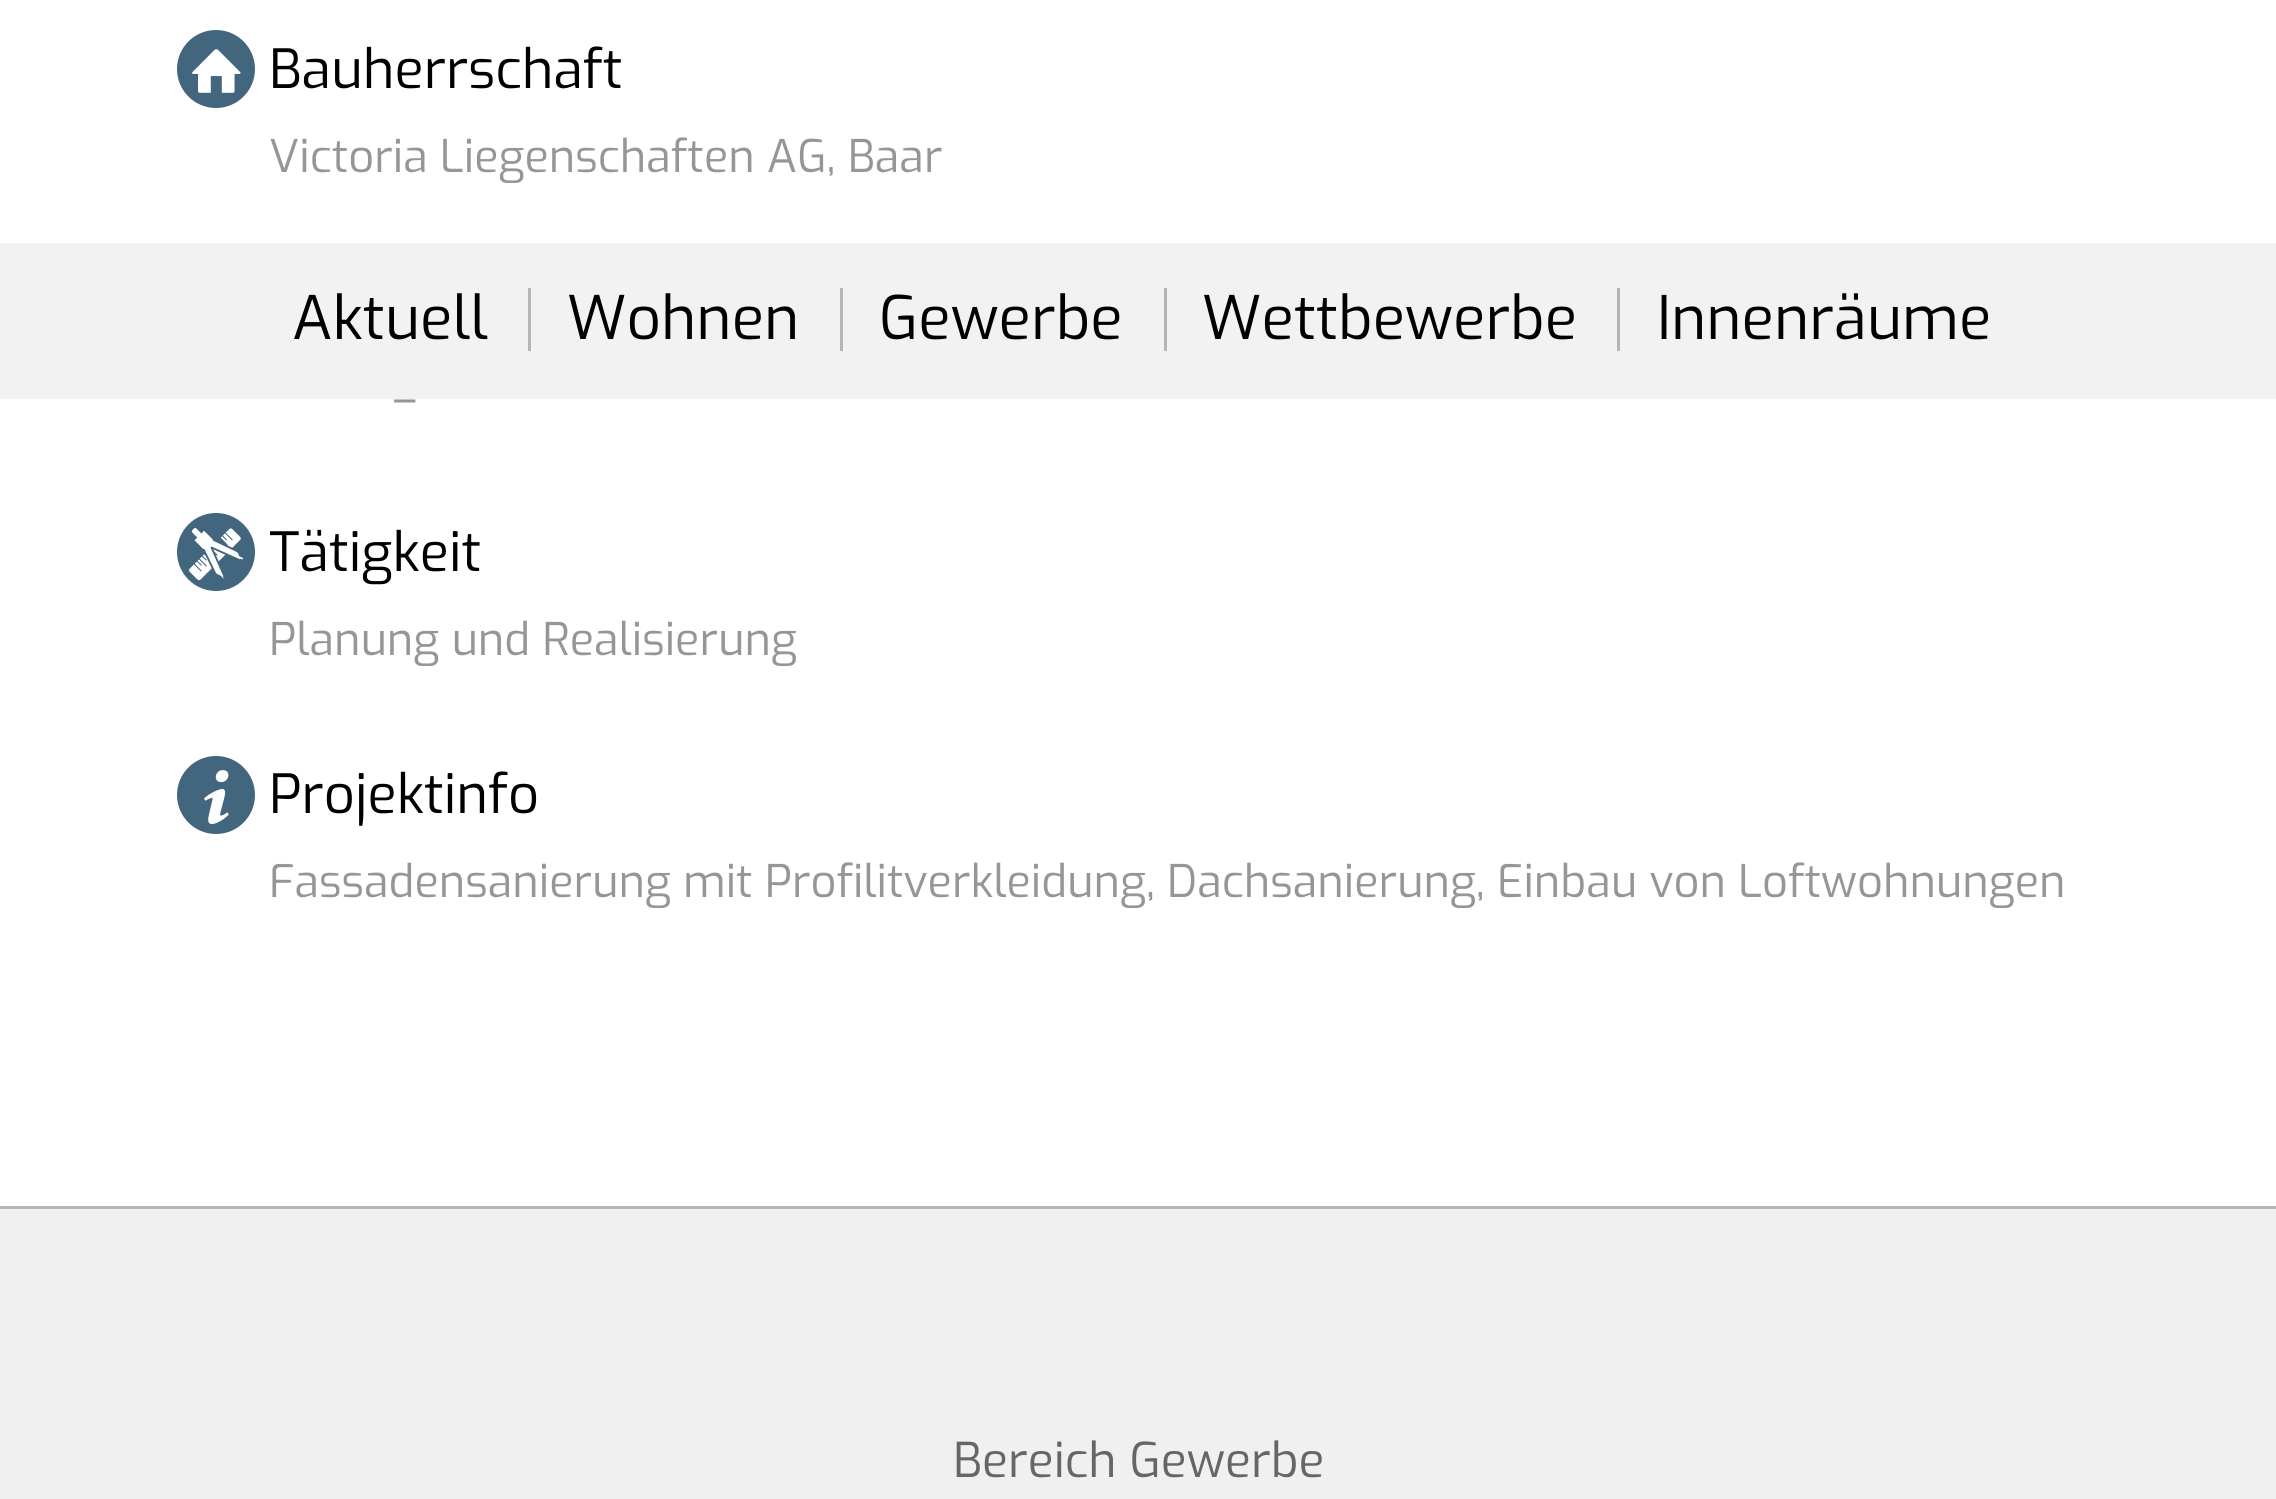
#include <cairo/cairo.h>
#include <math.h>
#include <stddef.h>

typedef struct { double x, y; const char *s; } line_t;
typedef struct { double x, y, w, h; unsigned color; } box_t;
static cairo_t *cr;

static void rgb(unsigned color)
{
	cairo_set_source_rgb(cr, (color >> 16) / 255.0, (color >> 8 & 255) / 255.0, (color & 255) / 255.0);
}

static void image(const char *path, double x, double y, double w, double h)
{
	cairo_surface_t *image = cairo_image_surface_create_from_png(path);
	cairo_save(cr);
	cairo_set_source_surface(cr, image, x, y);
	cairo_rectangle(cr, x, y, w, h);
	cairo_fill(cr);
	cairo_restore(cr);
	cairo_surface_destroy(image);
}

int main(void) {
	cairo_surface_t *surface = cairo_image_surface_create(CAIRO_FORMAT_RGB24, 2276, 1499);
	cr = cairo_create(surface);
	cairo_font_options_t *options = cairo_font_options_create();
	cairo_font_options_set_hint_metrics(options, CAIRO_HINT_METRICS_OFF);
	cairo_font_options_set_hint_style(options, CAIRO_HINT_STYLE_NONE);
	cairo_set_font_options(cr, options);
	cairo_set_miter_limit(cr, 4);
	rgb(0xffffff);
	cairo_paint(cr);
	rgb(0x41667e);
	cairo_arc(cr, 216, 69, 37.5, 0, 2 * M_PI);
	cairo_fill_preserve(cr);
	cairo_set_line_width(cr, 3);
	cairo_stroke(cr);
	image("img/1.png", 192, 49, 49, 44);
	cairo_arc(cr, 216, 552, 37.5, 0, 2 * M_PI);
	cairo_fill_preserve(cr);
	cairo_stroke(cr);
	image("img/2.png", 189, 528, 54, 53);
	cairo_arc(cr, 216, 795, 37.5, 0, 2 * M_PI);
	cairo_fill_preserve(cr);
	cairo_stroke(cr);
	image("img/3.png", 204, 770, 25, 55);
	{
		static const box_t items[] = {
			{0, 243, 2276, 156, 0xf2f2f2},
			{528, 288, 3, 63, 0xb5b5b5},
			{840, 288, 3, 63, 0xb5b5b5},
			{1164, 288, 3, 63, 0xb5b5b5},
			{1617, 288, 3, 63, 0xb5b5b5},
			{0, 1209, 2276, 290, 0xf0f0f0},
			{0, 1206, 2276, 3, 0xb5b5b5},
		};
		for (size_t i = 0; i < sizeof items / sizeof *items; i++) {
			rgb(items[i].color);
			cairo_rectangle(cr, items[i].x, items[i].y, items[i].w, items[i].h);
			cairo_fill(cr);
		}
	}
	cairo_select_font_face(cr, "Exo", CAIRO_FONT_SLANT_NORMAL, CAIRO_FONT_WEIGHT_NORMAL);
	cairo_set_font_size(cr, 54);
	rgb(0x000000);
	cairo_move_to(cr, 269, 88);
	cairo_show_text(cr, "Bauherrschaft");
	cairo_set_font_size(cr, 45);
	rgb(0x969696);
	cairo_move_to(cr, 269, 172);
	cairo_show_text(cr, "Victoria Liegenschaften AG, Baar");
	cairo_move_to(cr, 393, 414);
	cairo_show_text(cr, "–");
	cairo_save(cr);
	cairo_rectangle(cr, 270, 513, 1836, 213);
	cairo_clip(cr);
	cairo_set_font_size(cr, 54);
	rgb(0x000000);
	cairo_move_to(cr, 269, 571);
	cairo_show_text(cr, "Tätigkeit");
	cairo_restore(cr);
	cairo_move_to(cr, 269, 655);
	cairo_show_text(cr, "Planung und Realisierung");
	cairo_set_font_size(cr, 54);
	rgb(0x000000);
	cairo_move_to(cr, 269, 813);
	cairo_show_text(cr, "Projektinfo");
	cairo_set_font_size(cr, 45);
	rgb(0x969696);
	cairo_move_to(cr, 269, 897);
	cairo_show_text(cr, "Fassadensanierung mit Profilitverkleidung, Dachsanierung, Einbau von Loftwohnungen");
	cairo_set_font_size(cr, 60);
	rgb(0x000000);
	{
		static const line_t items[] = {
			{292, 339, "Aktuell"},
			{567, 339, "Wohnen"},
			{879, 339, "Gewerbe"},
			{1202, 339, "Wettbewerbe"},
			{1657, 339, "Innenräume"},
		};
		for (size_t i = 0; i < sizeof items / sizeof *items; i++) {
			cairo_move_to(cr, items[i].x, items[i].y);
			cairo_show_text(cr, items[i].s);
		}
	}
	cairo_set_font_size(cr, 48);
	rgb(0x666666);
	cairo_move_to(cr, 953, 1477);
	cairo_show_text(cr, "Bereich Gewerbe");
	cairo_surface_write_to_png(surface, "page.png");
	cairo_font_options_destroy(options);
	cairo_destroy(cr);
	cairo_surface_destroy(surface);
	return 0;
}
